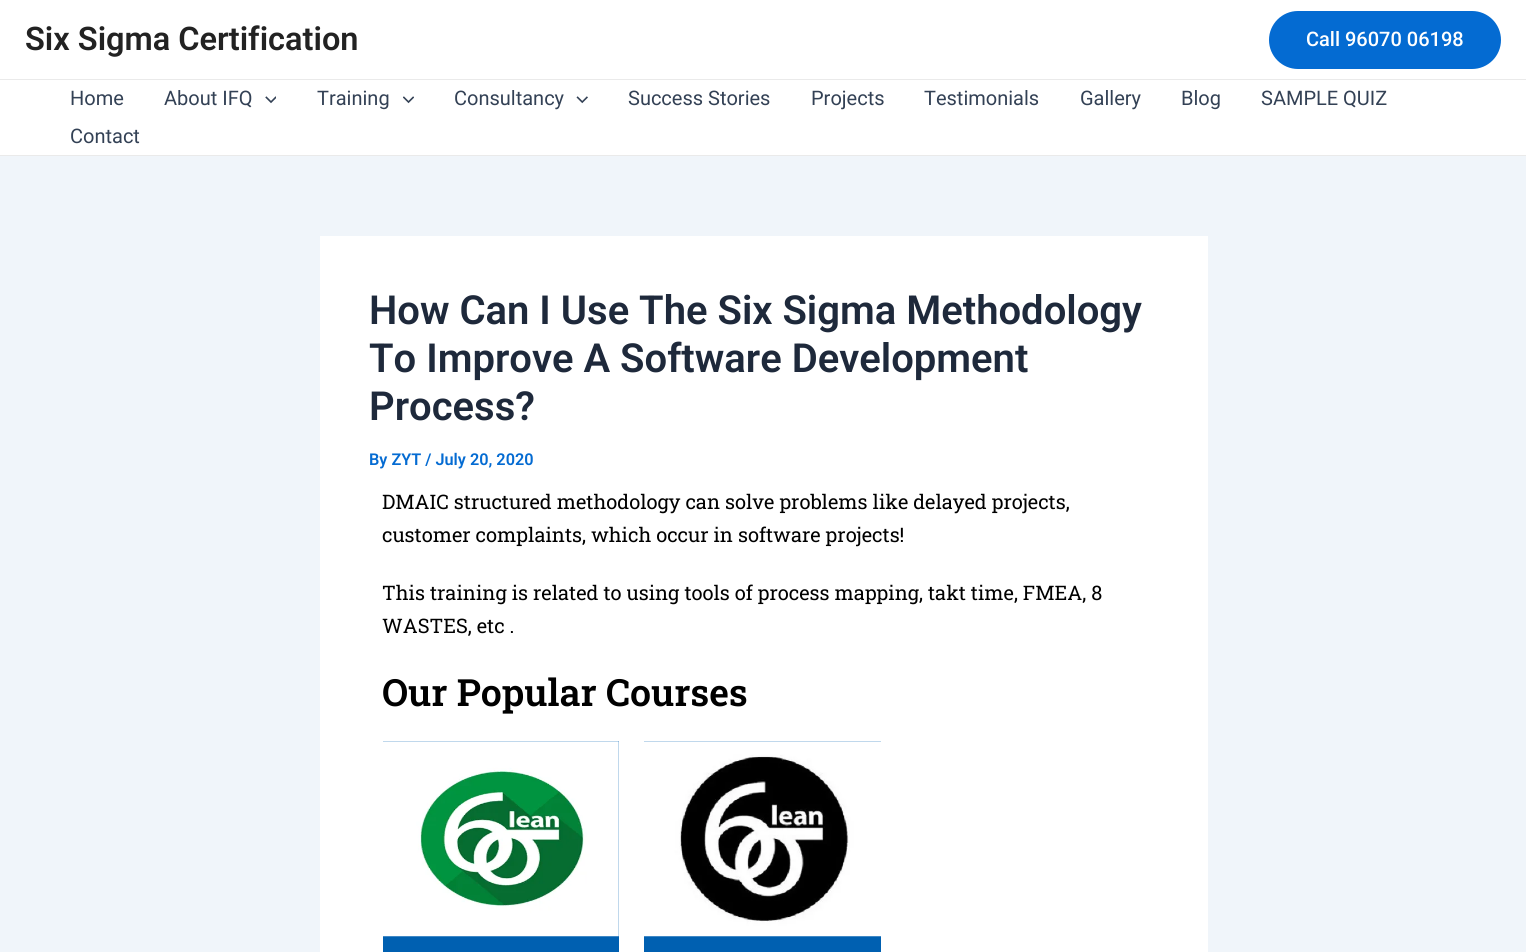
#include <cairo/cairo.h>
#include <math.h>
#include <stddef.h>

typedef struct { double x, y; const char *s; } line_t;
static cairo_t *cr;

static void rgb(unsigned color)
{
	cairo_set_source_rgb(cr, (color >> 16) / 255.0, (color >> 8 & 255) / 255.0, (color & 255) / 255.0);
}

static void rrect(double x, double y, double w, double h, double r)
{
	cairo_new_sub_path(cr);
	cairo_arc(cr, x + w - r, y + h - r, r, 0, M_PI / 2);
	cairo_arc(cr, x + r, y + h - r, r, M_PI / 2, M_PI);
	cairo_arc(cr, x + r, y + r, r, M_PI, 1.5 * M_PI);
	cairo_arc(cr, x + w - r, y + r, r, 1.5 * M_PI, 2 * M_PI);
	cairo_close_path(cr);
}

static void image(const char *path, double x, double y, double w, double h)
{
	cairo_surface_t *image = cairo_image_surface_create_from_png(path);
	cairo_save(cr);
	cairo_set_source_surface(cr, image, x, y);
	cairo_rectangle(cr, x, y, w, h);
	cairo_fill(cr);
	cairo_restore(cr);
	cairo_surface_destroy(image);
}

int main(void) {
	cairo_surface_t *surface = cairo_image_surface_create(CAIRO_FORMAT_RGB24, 1526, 952);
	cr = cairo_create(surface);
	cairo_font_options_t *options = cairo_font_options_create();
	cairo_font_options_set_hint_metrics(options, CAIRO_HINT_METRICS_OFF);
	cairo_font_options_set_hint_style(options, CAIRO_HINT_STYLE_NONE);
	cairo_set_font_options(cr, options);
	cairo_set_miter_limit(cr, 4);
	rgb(0xf0f5fa);
	cairo_paint(cr);
	rgb(0xffffff);
	cairo_rectangle(cr, 0, 0, 1526, 79);
	cairo_fill(cr);
	rgb(0xeaeaea);
	cairo_rectangle(cr, 0, 79, 1526, 1);
	cairo_fill(cr);
	rgb(0x046bd2);
	rrect(1269, 11, 232, 58, 29);
	cairo_fill(cr);
	rgb(0xffffff);
	cairo_rectangle(cr, 0, 80, 1526, 75);
	cairo_fill(cr);
	rgb(0xeaeaea);
	cairo_rectangle(cr, 0, 155, 1526, 1);
	cairo_fill(cr);
	image("img/1.png", 265, 96, 11, 8);
	image("img/2.png", 403, 96, 11, 8);
	image("img/3.png", 576, 96, 12, 8);
	rgb(0xffffff);
	cairo_rectangle(cr, 320, 236, 888, 716);
	cairo_fill(cr);
	rgb(0x0060b1);
	cairo_rectangle(cr, 383, 741, 236, 211);
	cairo_fill(cr);
	image("img/4.png", 383, 741, 236, 196);
	cairo_rectangle(cr, 644, 741, 237, 211);
	cairo_fill(cr);
	image("img/5.png", 644, 741, 237, 196);
	cairo_select_font_face(cr, "Roboto SemiBold", CAIRO_FONT_SLANT_NORMAL, CAIRO_FONT_WEIGHT_NORMAL);
	cairo_set_font_size(cr, 32.5);
	rgb(0x222222);
	cairo_move_to(cr, 25, 50);
	cairo_show_text(cr, "Six Sigma Certification");
	cairo_select_font_face(cr, "Roboto Medium", CAIRO_FONT_SLANT_NORMAL, CAIRO_FONT_WEIGHT_NORMAL);
	cairo_set_font_size(cr, 20);
	rgb(0xffffff);
	cairo_move_to(cr, 1306, 46);
	cairo_show_text(cr, "Call 96070 06198");
	cairo_select_font_face(cr, "Roboto", CAIRO_FONT_SLANT_NORMAL, CAIRO_FONT_WEIGHT_NORMAL);
	rgb(0x334155);
	{
		static const line_t items[] = {
			{70, 105, "Home"},
			{164, 105, "About IFQ"},
			{317, 105, "Training"},
			{454, 105, "Consultancy"},
			{628, 105, "Success Stories"},
			{811, 105, "Projects"},
			{924, 105, "Testimonials"},
			{1080, 105, "Gallery"},
			{1181, 105, "Blog"},
			{1261, 105, "SAMPLE QUIZ"},
			{70, 143, "Contact"},
		};
		for (size_t i = 0; i < sizeof items / sizeof *items; i++) {
			cairo_move_to(cr, items[i].x, items[i].y);
			cairo_show_text(cr, items[i].s);
		}
	}
	cairo_select_font_face(cr, "Roboto SemiBold", CAIRO_FONT_SLANT_NORMAL, CAIRO_FONT_WEIGHT_NORMAL);
	cairo_set_font_size(cr, 40);
	rgb(0x1e293b);
	{
		static const line_t items[] = {
			{369, 324, "How Can I Use The Six Sigma Methodology"},
			{369, 372, "To Improve A Software Development"},
			{369, 420, "Process?"},
		};
		for (size_t i = 0; i < sizeof items / sizeof *items; i++) {
			cairo_move_to(cr, items[i].x, items[i].y);
			cairo_show_text(cr, items[i].s);
		}
	}
	cairo_set_font_size(cr, 16.25);
	rgb(0x046bd2);
	cairo_move_to(cr, 369, 465);
	cairo_show_text(cr, "By ZYT / July 20, 2020");
	cairo_select_font_face(cr, "Roboto Slab", CAIRO_FONT_SLANT_NORMAL, CAIRO_FONT_WEIGHT_NORMAL);
	cairo_set_font_size(cr, 20);
	rgb(0x000000);
	{
		static const line_t items[] = {
			{382, 509, "DMAIC structured methodology can solve problems like delayed projects,"},
			{382, 542, "customer complaints, which occur in software projects!"},
			{382, 600, "This training is related to using tools of process mapping, takt time, FMEA, 8"},
			{382, 633, "WASTES, etc ."},
		};
		for (size_t i = 0; i < sizeof items / sizeof *items; i++) {
			cairo_move_to(cr, items[i].x, items[i].y);
			cairo_show_text(cr, items[i].s);
		}
	}
	cairo_select_font_face(cr, "Roboto Slab SemiBold", CAIRO_FONT_SLANT_NORMAL, CAIRO_FONT_WEIGHT_NORMAL);
	cairo_set_font_size(cr, 37.5);
	cairo_move_to(cr, 382, 706);
	cairo_show_text(cr, "Our Popular Courses");
	cairo_surface_write_to_png(surface, "page.png");
	cairo_font_options_destroy(options);
	cairo_destroy(cr);
	cairo_surface_destroy(surface);
	return 0;
}
